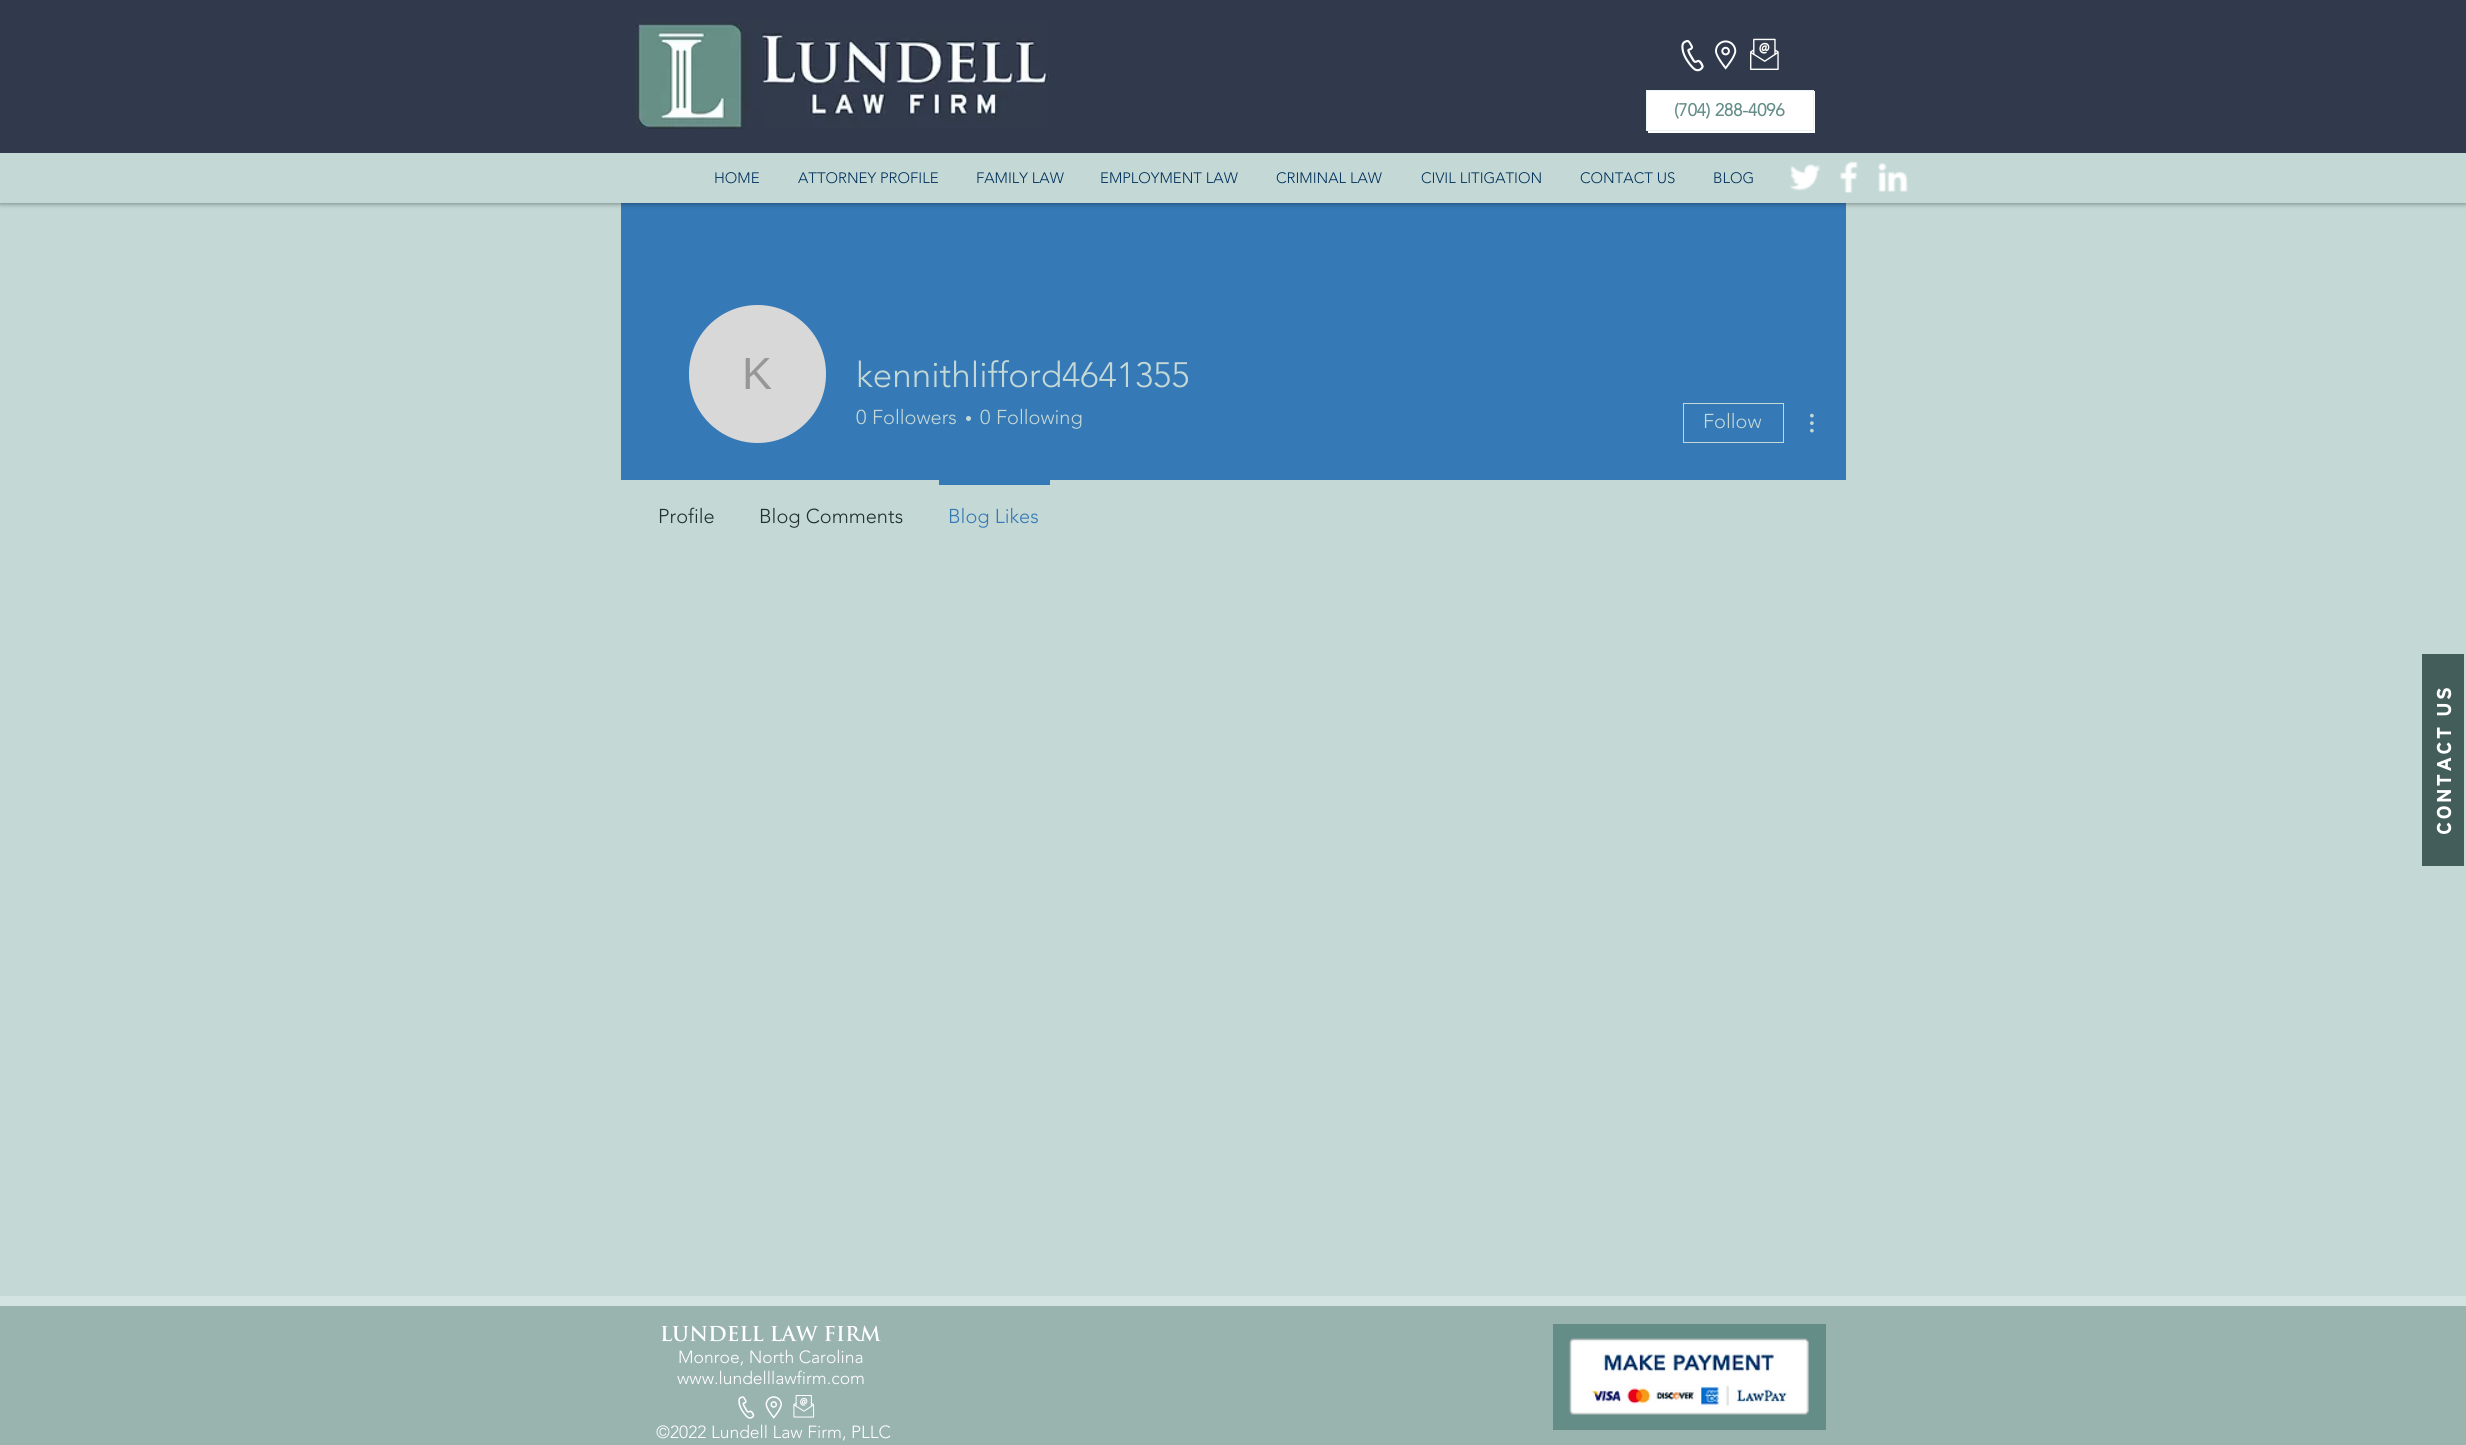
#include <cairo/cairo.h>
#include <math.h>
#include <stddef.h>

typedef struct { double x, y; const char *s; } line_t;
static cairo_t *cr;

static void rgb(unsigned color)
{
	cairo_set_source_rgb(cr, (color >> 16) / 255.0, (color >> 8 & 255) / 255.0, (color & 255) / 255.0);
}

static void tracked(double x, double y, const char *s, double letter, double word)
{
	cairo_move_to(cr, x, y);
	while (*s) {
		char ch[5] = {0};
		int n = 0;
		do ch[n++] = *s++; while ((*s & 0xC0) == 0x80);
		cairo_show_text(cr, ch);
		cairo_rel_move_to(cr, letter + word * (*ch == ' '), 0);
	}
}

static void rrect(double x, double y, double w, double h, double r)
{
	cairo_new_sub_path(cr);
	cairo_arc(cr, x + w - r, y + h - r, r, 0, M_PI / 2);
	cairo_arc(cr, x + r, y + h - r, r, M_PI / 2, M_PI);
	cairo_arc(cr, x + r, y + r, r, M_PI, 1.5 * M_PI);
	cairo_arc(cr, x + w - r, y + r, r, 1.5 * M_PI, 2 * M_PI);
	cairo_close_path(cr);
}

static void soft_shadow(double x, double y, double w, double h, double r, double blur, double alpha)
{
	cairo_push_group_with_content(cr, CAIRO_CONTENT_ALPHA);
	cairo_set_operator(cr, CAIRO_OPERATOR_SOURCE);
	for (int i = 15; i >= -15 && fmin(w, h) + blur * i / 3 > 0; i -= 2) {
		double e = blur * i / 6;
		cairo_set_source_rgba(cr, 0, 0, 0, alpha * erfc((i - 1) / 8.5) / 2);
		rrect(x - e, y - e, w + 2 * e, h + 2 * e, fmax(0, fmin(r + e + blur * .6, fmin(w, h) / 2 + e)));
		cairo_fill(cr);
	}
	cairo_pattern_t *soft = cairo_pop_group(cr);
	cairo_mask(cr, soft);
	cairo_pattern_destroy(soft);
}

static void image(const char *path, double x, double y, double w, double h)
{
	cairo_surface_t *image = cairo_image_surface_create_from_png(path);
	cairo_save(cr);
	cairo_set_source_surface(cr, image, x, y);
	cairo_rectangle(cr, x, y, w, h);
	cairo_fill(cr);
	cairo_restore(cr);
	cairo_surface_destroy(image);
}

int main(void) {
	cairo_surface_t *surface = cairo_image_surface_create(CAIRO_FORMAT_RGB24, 2466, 1445);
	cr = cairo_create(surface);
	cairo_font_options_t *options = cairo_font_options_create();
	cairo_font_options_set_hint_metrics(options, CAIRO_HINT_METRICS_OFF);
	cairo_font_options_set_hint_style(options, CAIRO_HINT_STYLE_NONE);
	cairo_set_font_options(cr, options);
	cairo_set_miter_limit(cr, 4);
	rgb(0xc4d9d6);
	cairo_paint(cr);
	rgb(0x3579b7);
	cairo_rectangle(cr, 621, 203, 1225, 277);
	cairo_fill(cr);
	rgb(0x000000);
	soft_shadow(0, 0, 2466, 203, 0, 3, 0.5);
	rgb(0x303a4c);
	cairo_rectangle(cr, 0, 0, 2466, 153);
	cairo_fill(cr);
	image("img/1.png", 636, 18, 413, 111);
	image("img/2.png", 1681, 40, 23, 32);
	image("img/3.png", 1715, 40, 22, 30);
	image("img/4.png", 1750, 38, 29, 32);
	rgb(0xffffff);
	cairo_new_path(cr);
	cairo_move_to(cr, 1648, 131);
	cairo_line_to(cr, 1648, 133);
	cairo_line_to(cr, 1815, 133);
	cairo_line_to(cr, 1815, 91);
	cairo_line_to(cr, 1814, 91);
	cairo_line_to(cr, 1814, 131);
	cairo_close_path(cr);
	cairo_fill(cr);
	cairo_rectangle(cr, 1646.5, 90.5, 167, 40);
	cairo_fill_preserve(cr);
	rgb(0xeaf4f6);
	cairo_set_line_width(cr, 1);
	cairo_stroke(cr);
	rgb(0xc4d9d6);
	cairo_rectangle(cr, 0, 153, 2466, 50);
	cairo_fill(cr);
	image("img/5.png", 1790, 164, 31, 27);
	image("img/6.png", 1840, 161, 18, 32);
	image("img/7.png", 1878, 163, 30, 29);
	rgb(0xd8d8d8);
	rrect(689, 305, 137, 138, 68.5);
	cairo_fill(cr);
	rgb(0xc4d9d6);
	cairo_arc(cr, 968.5, 418.5, 2.5, 0, 2 * M_PI);
	cairo_fill(cr);
	cairo_rectangle(cr, 1683.5, 403.5, 100, 39);
	cairo_stroke(cr);
	image("img/8.png", 1810, 413, 4, 20);
	rgb(0x3579b7);
	cairo_rectangle(cr, 939, 480, 111, 5);
	cairo_fill(cr);
	rgb(0x435e5a);
	cairo_rectangle(cr, 2422, 654, 42, 212);
	cairo_fill(cr);
	image("img/9.png", 0, 1296, 2466, 10);
	rgb(0x99b3af);
	cairo_rectangle(cr, 0, 1306, 2466, 139);
	cairo_fill(cr);
	rgb(0x648d87);
	cairo_rectangle(cr, 1553, 1324, 273, 106);
	cairo_fill(cr);
	image("img/10.png", 1568, 1338, 241, 77);
	image("img/11.png", 738, 1396, 17, 23);
	image("img/12.png", 765, 1396, 17, 23);
	image("img/13.png", 793, 1395, 22, 23);
	cairo_select_font_face(cr, "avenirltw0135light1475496", CAIRO_FONT_SLANT_NORMAL, CAIRO_FONT_WEIGHT_BOLD);
	cairo_set_font_size(cr, 17.5);
	cairo_move_to(cr, 1674, 116);
	cairo_show_text(cr, "(704) 288-4096");
	cairo_select_font_face(cr, "avenirltw0135light1475496 Light", CAIRO_FONT_SLANT_NORMAL, CAIRO_FONT_WEIGHT_NORMAL);
	cairo_set_font_size(cr, 15);
	rgb(0x00305b);
	{
		static const line_t items[] = {
			{714, 183, "HOME"},
			{798, 183, "ATTORNEY PROFILE"},
			{976, 183, "FAMILY LAW"},
			{1100, 183, "EMPLOYMENT LAW"},
			{1276, 183, "CRIMINAL LAW"},
			{1421, 183, "CIVIL LITIGATION"},
			{1580, 183, "CONTACT US"},
			{1713, 183, "BLOG"},
		};
		for (size_t i = 0; i < sizeof items / sizeof *items; i++) {
			cairo_move_to(cr, items[i].x, items[i].y);
			cairo_show_text(cr, items[i].s);
		}
	}
	cairo_select_font_face(cr, "Liberation Sans", CAIRO_FONT_SLANT_NORMAL, CAIRO_FONT_WEIGHT_NORMAL);
	cairo_set_font_size(cr, 45);
	rgb(0x979797);
	cairo_move_to(cr, 742, 389);
	cairo_show_text(cr, "K");
	cairo_select_font_face(cr, "avenirltw0135light1475496 Light", CAIRO_FONT_SLANT_NORMAL, CAIRO_FONT_WEIGHT_NORMAL);
	cairo_set_font_size(cr, 35);
	rgb(0xc4d9d6);
	cairo_move_to(cr, 856, 387);
	cairo_show_text(cr, "kennithlifford4641355");
	cairo_set_font_size(cr, 20);
	{
		static const line_t items[] = {
			{856, 424, "0"},
			{872, 424, "Followers"},
			{980, 424, "0"},
			{996, 424, "Following"},
			{1703, 428, "Follow"},
		};
		for (size_t i = 0; i < sizeof items / sizeof *items; i++) {
			cairo_move_to(cr, items[i].x, items[i].y);
			cairo_show_text(cr, items[i].s);
		}
	}
	rgb(0x212f2d);
	cairo_move_to(cr, 658, 523);
	cairo_show_text(cr, "Profile");
	cairo_move_to(cr, 759, 523);
	cairo_show_text(cr, "Blog Comments");
	rgb(0x3579b7);
	cairo_move_to(cr, 948, 523);
	cairo_show_text(cr, "Blog Likes");
	cairo_select_font_face(cr, "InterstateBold", CAIRO_FONT_SLANT_NORMAL, CAIRO_FONT_WEIGHT_BOLD);
	rgb(0xffffff);
	cairo_save(cr);
	cairo_translate(cr, 2451, 835);
	cairo_rotate(cr, -90 * M_PI / 180);
	tracked(0, 0, "CONTACT US", 2, 0);
	cairo_restore(cr);
	cairo_select_font_face(cr, "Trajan", CAIRO_FONT_SLANT_NORMAL, CAIRO_FONT_WEIGHT_BOLD);
	cairo_move_to(cr, 660, 1341);
	cairo_show_text(cr, "LUNDELL LAW FIRM");
	cairo_select_font_face(cr, "avenirltw0135light1475496 Light", CAIRO_FONT_SLANT_NORMAL, CAIRO_FONT_WEIGHT_NORMAL);
	cairo_set_font_size(cr, 17.5);
	{
		static const line_t items[] = {
			{678, 1363, "Monroe, North Carolina"},
			{677, 1384, "www.lundelllawfirm.com"},
			{656, 1438, "©2022 Lundell Law Firm, PLLC"},
		};
		for (size_t i = 0; i < sizeof items / sizeof *items; i++) {
			cairo_move_to(cr, items[i].x, items[i].y);
			cairo_show_text(cr, items[i].s);
		}
	}
	cairo_surface_write_to_png(surface, "page.png");
	cairo_font_options_destroy(options);
	cairo_destroy(cr);
	cairo_surface_destroy(surface);
	return 0;
}
